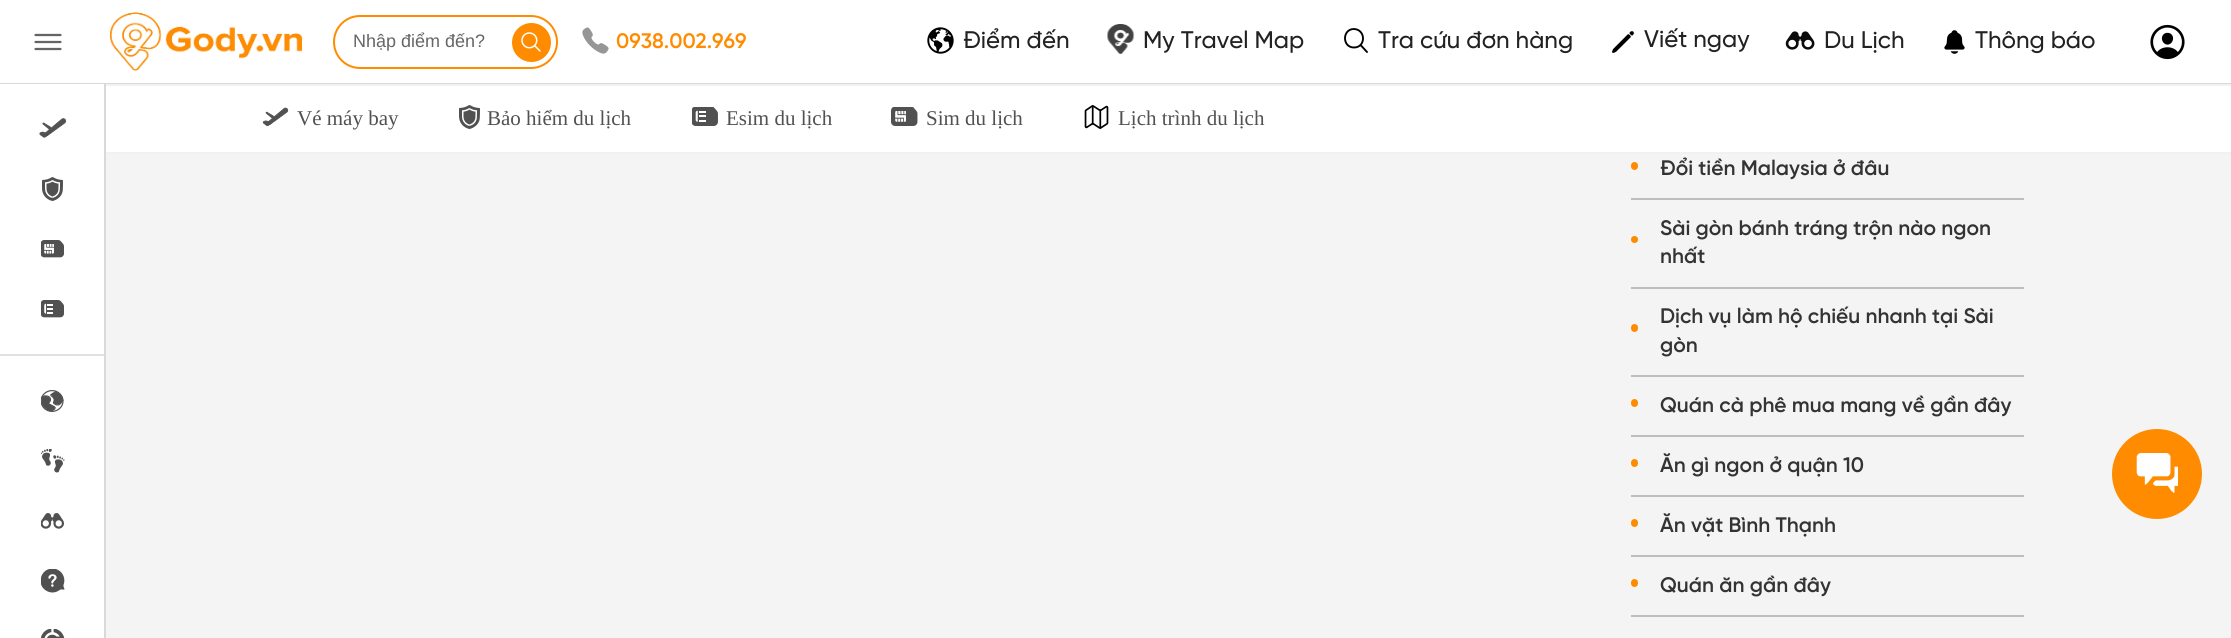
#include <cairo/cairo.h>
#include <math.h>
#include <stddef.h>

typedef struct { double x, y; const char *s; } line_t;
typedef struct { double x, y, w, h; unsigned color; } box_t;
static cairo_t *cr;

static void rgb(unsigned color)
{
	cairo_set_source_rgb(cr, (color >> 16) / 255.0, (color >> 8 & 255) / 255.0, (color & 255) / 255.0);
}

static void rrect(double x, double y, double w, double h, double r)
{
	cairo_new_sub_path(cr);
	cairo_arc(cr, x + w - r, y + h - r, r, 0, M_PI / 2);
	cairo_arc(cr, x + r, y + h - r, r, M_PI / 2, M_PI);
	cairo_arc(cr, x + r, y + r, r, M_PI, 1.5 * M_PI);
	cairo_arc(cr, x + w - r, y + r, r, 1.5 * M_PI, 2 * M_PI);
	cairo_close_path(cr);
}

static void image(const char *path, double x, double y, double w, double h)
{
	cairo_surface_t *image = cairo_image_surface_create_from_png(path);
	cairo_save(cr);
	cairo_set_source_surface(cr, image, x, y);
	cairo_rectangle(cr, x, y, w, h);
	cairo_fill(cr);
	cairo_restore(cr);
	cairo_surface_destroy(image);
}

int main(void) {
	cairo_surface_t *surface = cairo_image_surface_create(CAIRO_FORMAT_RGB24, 2231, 638);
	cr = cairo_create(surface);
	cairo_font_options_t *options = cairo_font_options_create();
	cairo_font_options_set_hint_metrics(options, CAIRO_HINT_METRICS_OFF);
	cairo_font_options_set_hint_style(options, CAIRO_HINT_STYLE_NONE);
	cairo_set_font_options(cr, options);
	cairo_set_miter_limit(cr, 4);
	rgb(0xf4f4f4);
	cairo_paint(cr);
	{
		static const box_t items[] = {
			{0, 84, 104, 554, 0xffffff},
			{104, 84, 2, 554, 0xd9d9d9},
			{0, 354, 104, 2, 0xe0e0e0},
		};
		for (size_t i = 0; i < sizeof items / sizeof *items; i++) {
			rgb(items[i].color);
			cairo_rectangle(cr, items[i].x, items[i].y, items[i].w, items[i].h);
			cairo_fill(cr);
		}
	}
	image("img/1.png", 39, 118, 28, 20);
	image("img/2.png", 42, 177, 21, 24);
	image("img/3.png", 41, 240, 23, 18);
	image("img/4.png", 41, 300, 23, 18);
	image("img/5.png", 41, 390, 23, 22);
	image("img/6.png", 41, 449, 24, 24);
	image("img/7.png", 41, 513, 23, 16);
	image("img/8.png", 41, 569, 24, 24);
	image("img/9.png", 41, 629, 24, 9);
	{
		static const box_t items[] = {
			{0, 0, 2231, 83, 0xffffff},
			{0, 83, 2231, 1, 0xd9d9d9},
			{106, 84, 2125, 2, 0xf1f1f1},
		};
		for (size_t i = 0; i < sizeof items / sizeof *items; i++) {
			rgb(items[i].color);
			cairo_rectangle(cr, items[i].x, items[i].y, items[i].w, items[i].h);
			cairo_fill(cr);
		}
	}
	cairo_new_path(cr);
	cairo_move_to(cr, 35.5, 35);
	cairo_line_to(cr, 60.5, 35);
	cairo_move_to(cr, 35.5, 42);
	cairo_line_to(cr, 60.5, 42);
	cairo_move_to(cr, 35.5, 49);
	cairo_line_to(cr, 60.5, 49);
	rgb(0x646464);
	cairo_set_line_width(cr, 2.2);
	cairo_set_line_cap(cr, CAIRO_LINE_CAP_ROUND);
	cairo_stroke(cr);
	image("img/10.png", 110, 12, 193, 59);
	rrect(334, 16, 223, 52, 26);
	rgb(0xff8c00);
	cairo_set_line_width(cr, 2);
	cairo_set_line_cap(cr, CAIRO_LINE_CAP_BUTT);
	cairo_stroke(cr);
	cairo_arc(cr, 531.5, 42.5, 19.5, 0, 2 * M_PI);
	cairo_fill(cr);
	image("img/11.png", 521, 32, 20, 20);
	image("img/12.png", 582, 27, 27, 27);
	image("img/13.png", 927, 27, 27, 27);
	image("img/14.png", 1107, 24, 28, 30);
	cairo_new_path(cr);
	cairo_move_to(cr, 1354, 29);
	cairo_curve_to(cr, 1342, 29, 1342, 47.5, 1354, 47.5);
	cairo_curve_to(cr, 1366, 47.5, 1366, 29.5, 1354, 29);
	cairo_close_path(cr);
	rgb(0x000000);
	cairo_set_line_width(cr, 1.9);
	cairo_stroke(cr);
	cairo_new_path(cr);
	cairo_move_to(cr, 1361, 45.5);
	cairo_line_to(cr, 1367, 52);
	cairo_set_line_cap(cr, CAIRO_LINE_CAP_ROUND);
	cairo_stroke(cr);
	image("img/15.png", 1612, 31, 22, 22);
	image("img/16.png", 1785, 31, 30, 19);
	image("img/17.png", 1944, 30, 21, 24);
	image("img/18.png", 2150, 24, 35, 36);
	rgb(0xffffff);
	cairo_rectangle(cr, 106, 86, 2125, 66);
	cairo_fill(cr);
	rgb(0xf1f1f1);
	cairo_rectangle(cr, 106, 152, 2125, 2);
	cairo_fill(cr);
	image("img/19.png", 262, 107, 27, 20);
	image("img/2.png", 459, 105, 21, 24);
	image("img/20.png", 692, 107, 26, 19);
	image("img/21.png", 891, 107, 27, 19);
	image("img/22.png", 1084, 105, 25, 24);
	rgb(0xbdbdbd);
	cairo_rectangle(cr, 1631, 198, 393, 2);
	cairo_fill(cr);
	rgb(0xff8c00);
	rrect(1631, 162, 7, 8, 3.5);
	cairo_fill(cr);
	rgb(0xbdbdbd);
	cairo_rectangle(cr, 1631, 287, 393, 2);
	cairo_fill(cr);
	rgb(0xff8c00);
	cairo_arc(cr, 1634.5, 239.5, 3.5, 0, 2 * M_PI);
	cairo_fill(cr);
	rgb(0xbdbdbd);
	cairo_rectangle(cr, 1631, 375, 393, 2);
	cairo_fill(cr);
	rgb(0xff8c00);
	rrect(1631, 324, 7, 8, 3.5);
	cairo_fill(cr);
	rgb(0xbdbdbd);
	cairo_rectangle(cr, 1631, 435, 393, 2);
	cairo_fill(cr);
	rgb(0xff8c00);
	rrect(1631, 399, 7, 8, 3.5);
	cairo_fill(cr);
	rgb(0xbdbdbd);
	cairo_rectangle(cr, 1631, 495, 393, 2);
	cairo_fill(cr);
	rgb(0xff8c00);
	rrect(1631, 459, 7, 8, 3.5);
	cairo_fill(cr);
	rgb(0xbdbdbd);
	cairo_rectangle(cr, 1631, 555, 393, 2);
	cairo_fill(cr);
	rgb(0xff8c00);
	rrect(1631, 519, 7, 8, 3.5);
	cairo_fill(cr);
	rgb(0xbdbdbd);
	cairo_rectangle(cr, 1631, 615, 393, 2);
	cairo_fill(cr);
	rgb(0xff8c00);
	rrect(1631, 579, 7, 8, 3.5);
	cairo_fill(cr);
	cairo_arc(cr, 2157, 474, 45, 0, 2 * M_PI);
	cairo_fill(cr);
	image("img/23.png", 2136, 453, 42, 40);
	cairo_select_font_face(cr, "Liberation Sans", CAIRO_FONT_SLANT_NORMAL, CAIRO_FONT_WEIGHT_NORMAL);
	cairo_set_font_size(cr, 18);
	rgb(0x666666);
	cairo_move_to(cr, 353, 47);
	cairo_show_text(cr, "Nhập điểm đến?");
	cairo_select_font_face(cr, "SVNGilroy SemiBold", CAIRO_FONT_SLANT_NORMAL, CAIRO_FONT_WEIGHT_NORMAL);
	cairo_set_font_size(cr, 21);
	rgb(0xff8c00);
	cairo_move_to(cr, 616, 48);
	cairo_show_text(cr, "0938.002.969");
	cairo_select_font_face(cr, "SVNGilroy Medium", CAIRO_FONT_SLANT_NORMAL, CAIRO_FONT_WEIGHT_NORMAL);
	cairo_set_font_size(cr, 24);
	rgb(0x222222);
	{
		static const line_t items[] = {
			{963, 48, "Điểm đến"},
			{1143, 48, "My Travel Map"},
			{1378, 48, "Tra cứu đơn hàng"},
			{1644, 47, "Viết ngay"},
			{1824, 48, "Du Lịch"},
			{1975, 48, "Thông báo"},
		};
		for (size_t i = 0; i < sizeof items / sizeof *items; i++) {
			cairo_move_to(cr, items[i].x, items[i].y);
			cairo_show_text(cr, items[i].s);
		}
	}
	cairo_select_font_face(cr, "Liberation Serif", CAIRO_FONT_SLANT_NORMAL, CAIRO_FONT_WEIGHT_NORMAL);
	cairo_set_font_size(cr, 21);
	rgb(0x515151);
	{
		static const line_t items[] = {
			{297, 125, "Vé máy bay"},
			{487, 125, "Bảo hiểm du lịch"},
			{726, 125, "Esim du lịch"},
			{926, 125, "Sim du lịch"},
			{1118, 125, "Lịch trình du lịch"},
		};
		for (size_t i = 0; i < sizeof items / sizeof *items; i++) {
			cairo_move_to(cr, items[i].x, items[i].y);
			cairo_show_text(cr, items[i].s);
		}
	}
	cairo_select_font_face(cr, "SVNGilroy SemiBold", CAIRO_FONT_SLANT_NORMAL, CAIRO_FONT_WEIGHT_NORMAL);
	rgb(0x333333);
	{
		static const line_t items[] = {
			{1660, 175, "Đổi tiền Malaysia ở đâu"},
			{1660, 235, "Sài gòn bánh tráng trộn nào ngon"},
			{1660, 263, "nhất"},
			{1660, 323, "Dịch vụ làm hộ chiếu nhanh tại Sài"},
			{1660, 352, "gòn"},
			{1660, 412, "Quán cà phê mua mang về gần đây"},
			{1660, 472, "Ăn gì ngon ở quận 10"},
			{1660, 532, "Ăn vặt Bình Thạnh"},
			{1660, 592, "Quán ăn gần đây"},
		};
		for (size_t i = 0; i < sizeof items / sizeof *items; i++) {
			cairo_move_to(cr, items[i].x, items[i].y);
			cairo_show_text(cr, items[i].s);
		}
	}
	cairo_surface_write_to_png(surface, "page.png");
	cairo_font_options_destroy(options);
	cairo_destroy(cr);
	cairo_surface_destroy(surface);
	return 0;
}
